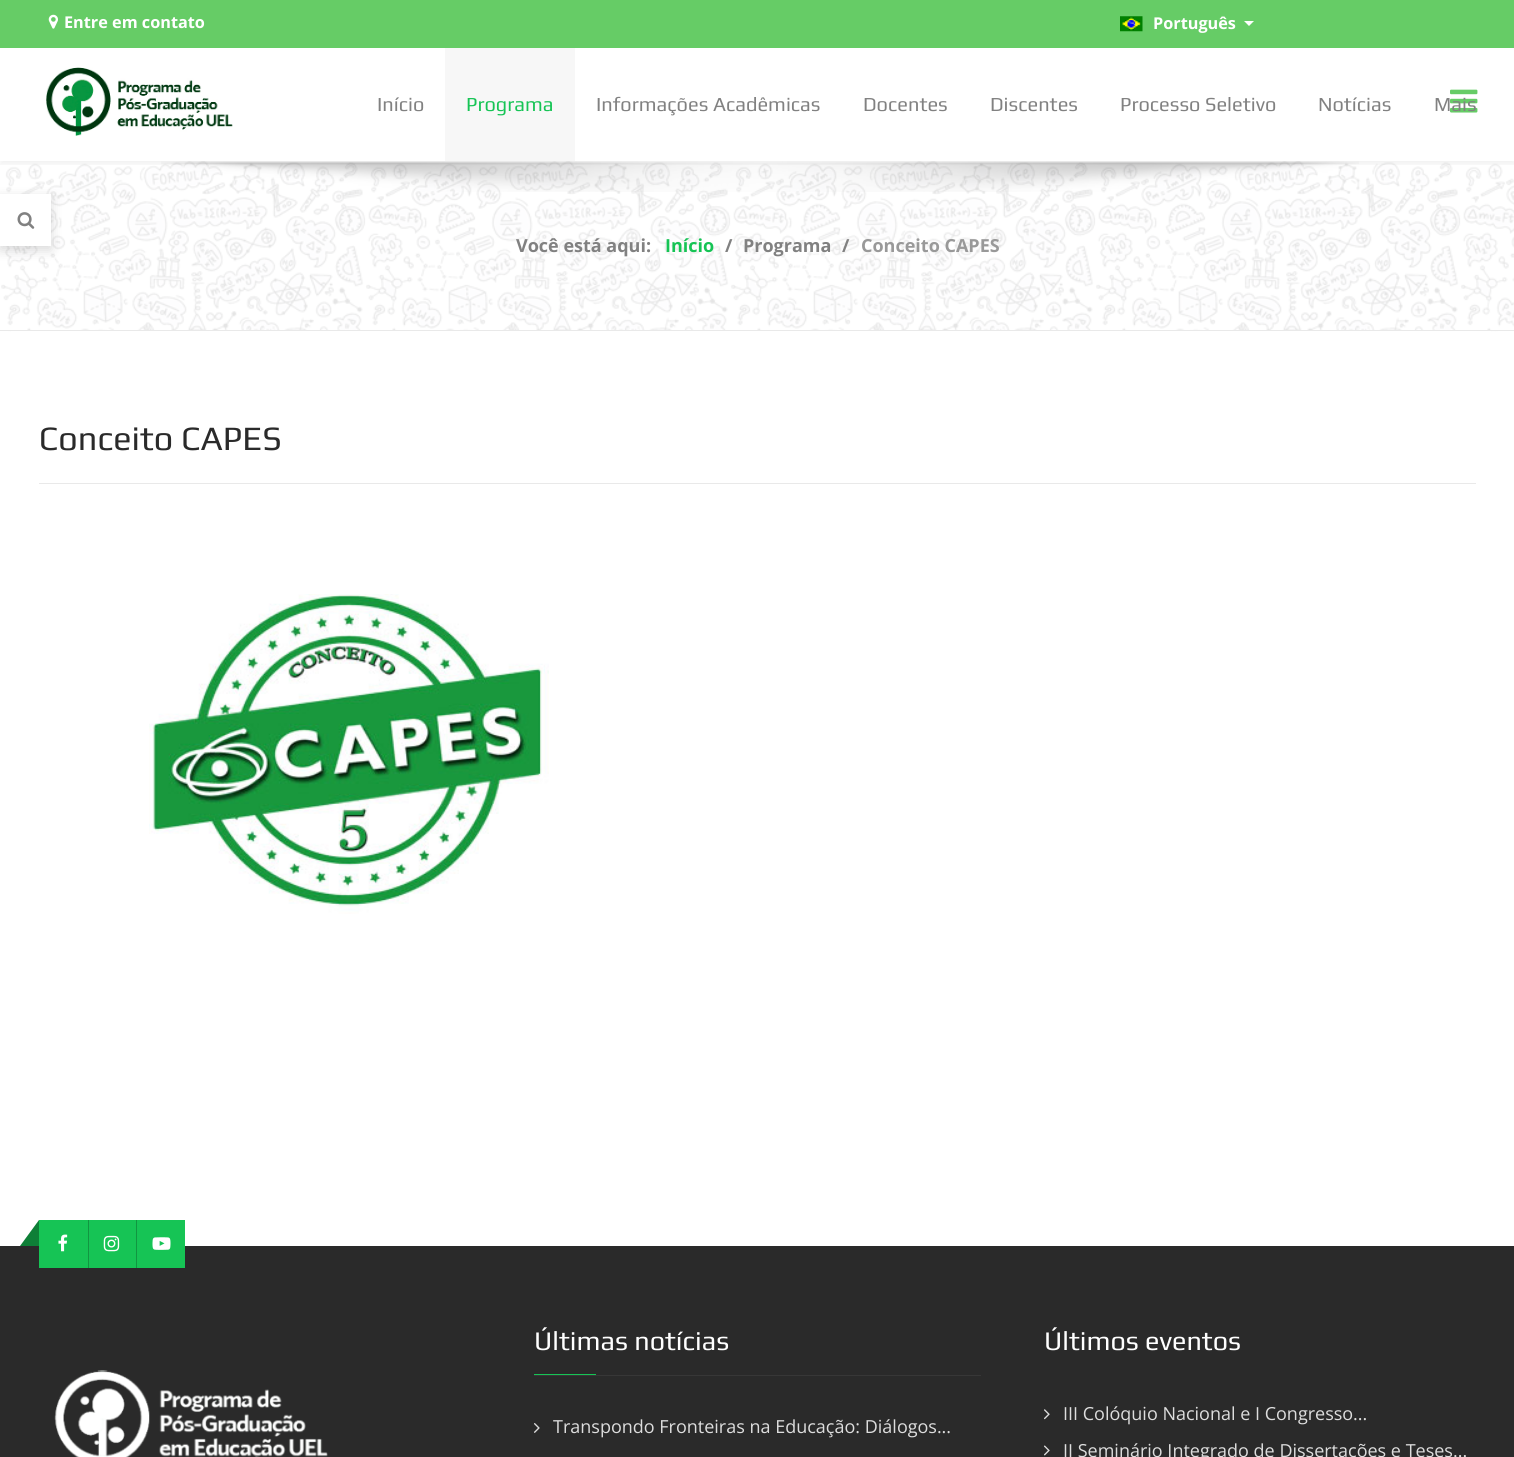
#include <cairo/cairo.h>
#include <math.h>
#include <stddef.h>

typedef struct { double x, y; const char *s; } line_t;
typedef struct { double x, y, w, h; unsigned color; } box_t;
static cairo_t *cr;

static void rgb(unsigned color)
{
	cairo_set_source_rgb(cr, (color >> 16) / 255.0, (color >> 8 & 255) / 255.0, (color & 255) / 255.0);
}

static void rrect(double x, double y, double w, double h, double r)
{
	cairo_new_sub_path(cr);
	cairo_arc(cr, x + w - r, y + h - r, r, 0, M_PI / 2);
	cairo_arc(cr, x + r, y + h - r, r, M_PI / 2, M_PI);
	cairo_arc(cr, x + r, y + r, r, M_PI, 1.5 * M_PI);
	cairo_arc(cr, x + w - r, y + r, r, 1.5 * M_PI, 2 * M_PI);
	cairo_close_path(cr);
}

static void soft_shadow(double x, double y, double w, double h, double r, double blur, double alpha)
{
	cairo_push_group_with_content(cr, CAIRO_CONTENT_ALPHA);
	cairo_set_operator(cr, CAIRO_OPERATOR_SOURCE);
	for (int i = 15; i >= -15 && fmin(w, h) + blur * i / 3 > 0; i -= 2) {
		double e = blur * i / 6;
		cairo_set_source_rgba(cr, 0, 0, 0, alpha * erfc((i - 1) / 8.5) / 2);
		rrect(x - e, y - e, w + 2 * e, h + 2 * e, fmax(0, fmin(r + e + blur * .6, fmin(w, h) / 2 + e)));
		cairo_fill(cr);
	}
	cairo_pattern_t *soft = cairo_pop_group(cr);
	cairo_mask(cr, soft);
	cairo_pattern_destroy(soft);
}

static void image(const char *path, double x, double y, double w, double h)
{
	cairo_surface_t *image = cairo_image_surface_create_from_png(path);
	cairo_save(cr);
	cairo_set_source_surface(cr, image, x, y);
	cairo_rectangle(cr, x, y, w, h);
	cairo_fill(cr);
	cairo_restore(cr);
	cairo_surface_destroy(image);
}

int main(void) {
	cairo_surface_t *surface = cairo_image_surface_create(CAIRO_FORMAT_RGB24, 1514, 1457);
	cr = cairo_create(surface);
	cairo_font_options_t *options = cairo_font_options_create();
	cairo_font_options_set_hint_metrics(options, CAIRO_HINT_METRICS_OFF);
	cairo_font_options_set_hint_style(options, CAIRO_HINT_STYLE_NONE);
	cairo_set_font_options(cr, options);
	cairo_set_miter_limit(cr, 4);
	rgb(0xffffff);
	cairo_paint(cr);
	rgb(0x66cc66);
	cairo_rectangle(cr, 0, 0, 1514, 48);
	cairo_fill(cr);
	image("img/1.png", 48, 14, 10, 15);
	image("img/2.png", 1120, 16, 23, 16);
	rgb(0xffffff);
	cairo_new_path(cr);
	cairo_move_to(cr, 1244, 21);
	cairo_line_to(cr, 1254, 21);
	cairo_line_to(cr, 1249, 26);
	cairo_close_path(cr);
	cairo_fill(cr);
	image("img/7.png", 1, 161, 1513, 171);
	cairo_save(cr);
	cairo_rectangle(cr, 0, 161, 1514, 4);
	cairo_clip(cr);
	rgb(0x000000);
	soft_shadow(0, 51, 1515, 114, 0, 2, 0.05);
	cairo_restore(cr);
	image("img/3.png", 1450, 89, 28, 24);
	image("img/4.png", 46, 67, 187, 69);
	rgb(0xf7f7f7);
	cairo_rectangle(cr, 445, 48, 130, 113);
	cairo_fill(cr);
	image("img/5.png", 161, 161, 1198, 31);
	rgb(0x000000);
	soft_shadow(0, 198, 51, 52, 0, 6, 0.15);
	rgb(0xffffff);
	cairo_rectangle(cr, 0, 194, 51, 52);
	cairo_fill(cr);
	image("img/6.png", 17, 212, 18, 17);
	{
		static const box_t items[] = {
			{0, 330, 1514, 1, 0xe9e9e9},
			{11, 331, 1480, 1, 0xffffff},
			{39, 483, 1437, 1, 0xe9e9e9},
		};
		for (size_t i = 0; i < sizeof items / sizeof *items; i++) {
			rgb(items[i].color);
			cairo_rectangle(cr, items[i].x, items[i].y, items[i].w, items[i].h);
			cairo_fill(cr);
		}
	}
	image("img/8.png", 149, 594, 400, 320);
	rgb(0x2a2a2a);
	cairo_rectangle(cr, 0, 1246, 1514, 211);
	cairo_fill(cr);
	rgb(0x16c455);
	cairo_rectangle(cr, 39, 1220, 146, 48);
	cairo_fill(cr);
	rgb(0x0e7f37);
	cairo_new_path(cr);
	cairo_move_to(cr, 39, 1220);
	cairo_line_to(cr, 39, 1246);
	cairo_line_to(cr, 20, 1246);
	cairo_close_path(cr);
	cairo_fill(cr);
	rgb(0x119641);
	cairo_rectangle(cr, 88, 1220, 1, 48);
	cairo_fill(cr);
	image("img/9.png", 58, 1234, 10, 18);
	cairo_rectangle(cr, 136, 1220, 1, 48);
	cairo_fill(cr);
	image("img/10.png", 103, 1235, 17, 17);
	image("img/11.png", 152, 1237, 19, 13);
	image("img/12.png", 54, 1370, 274, 87);
	rgb(0x373737);
	cairo_rectangle(cr, 534, 1375, 447, 1);
	cairo_fill(cr);
	rgb(0x16c455);
	cairo_rectangle(cr, 534, 1374, 62, 1);
	cairo_fill(cr);
	image("img/13.png", 534, 1423, 6, 10);
	image("img/14.png", 1044, 1409, 6, 11);
	image("img/15.png", 1044, 1445, 6, 11);
	cairo_select_font_face(cr, "Open Sans", CAIRO_FONT_SLANT_NORMAL, CAIRO_FONT_WEIGHT_BOLD);
	cairo_set_font_size(cr, 16.25);
	rgb(0xffffff);
	cairo_move_to(cr, 64, 28);
	cairo_show_text(cr, "Entre em contato");
	cairo_move_to(cr, 1153, 29);
	cairo_show_text(cr, "Português");
	cairo_select_font_face(cr, "Play", CAIRO_FONT_SLANT_NORMAL, CAIRO_FONT_WEIGHT_NORMAL);
	cairo_set_font_size(cr, 20);
	rgb(0x818181);
	cairo_move_to(cr, 377, 111);
	cairo_show_text(cr, "Início");
	rgb(0x16c455);
	cairo_move_to(cr, 466, 111);
	cairo_show_text(cr, "Programa");
	rgb(0x818181);
	{
		static const line_t items[] = {
			{596, 111, "Informações Acadêmicas"},
			{863, 111, "Docentes"},
			{990, 111, "Discentes"},
			{1120, 111, "Processo Seletivo"},
			{1318, 111, "Notícias"},
			{1434, 111, "Mais"},
		};
		for (size_t i = 0; i < sizeof items / sizeof *items; i++) {
			cairo_move_to(cr, items[i].x, items[i].y);
			cairo_show_text(cr, items[i].s);
		}
	}
	cairo_select_font_face(cr, "Open Sans", CAIRO_FONT_SLANT_NORMAL, CAIRO_FONT_WEIGHT_BOLD);
	cairo_set_font_size(cr, 18);
	cairo_move_to(cr, 516, 252);
	cairo_show_text(cr, "Você está aqui:");
	rgb(0x16c455);
	cairo_move_to(cr, 665, 252);
	cairo_show_text(cr, "Início");
	rgb(0x818181);
	{
		static const line_t items[] = {
			{725, 252, "/"},
			{743, 252, "Programa"},
			{842, 252, "/"},
		};
		for (size_t i = 0; i < sizeof items / sizeof *items; i++) {
			cairo_move_to(cr, items[i].x, items[i].y);
			cairo_show_text(cr, items[i].s);
		}
	}
	rgb(0x999999);
	cairo_move_to(cr, 861, 252);
	cairo_show_text(cr, "Conceito CAPES");
	cairo_select_font_face(cr, "Play", CAIRO_FONT_SLANT_NORMAL, CAIRO_FONT_WEIGHT_NORMAL);
	cairo_set_font_size(cr, 34.25);
	rgb(0x2a2a2a);
	cairo_move_to(cr, 39, 450);
	cairo_show_text(cr, "Conceito CAPES");
	cairo_set_font_size(cr, 27);
	rgb(0xffffff);
	cairo_move_to(cr, 534, 1350);
	cairo_show_text(cr, "Últimas notícias");
	cairo_select_font_face(cr, "Open Sans", CAIRO_FONT_SLANT_NORMAL, CAIRO_FONT_WEIGHT_NORMAL);
	cairo_set_font_size(cr, 18);
	rgb(0xdddddd);
	cairo_move_to(cr, 553, 1433);
	cairo_show_text(cr, "Transpondo Fronteiras na Educação: Diálogos...");
	cairo_select_font_face(cr, "Play", CAIRO_FONT_SLANT_NORMAL, CAIRO_FONT_WEIGHT_NORMAL);
	cairo_set_font_size(cr, 27);
	rgb(0xffffff);
	cairo_move_to(cr, 1044, 1350);
	cairo_show_text(cr, "Últimos eventos");
	cairo_select_font_face(cr, "Open Sans", CAIRO_FONT_SLANT_NORMAL, CAIRO_FONT_WEIGHT_NORMAL);
	cairo_set_font_size(cr, 18);
	rgb(0xdddddd);
	cairo_move_to(cr, 1063, 1420);
	cairo_show_text(cr, "III Colóquio Nacional e I Congresso...");
	cairo_move_to(cr, 1063, 1457);
	cairo_show_text(cr, "II Seminário Integrado de Dissertações e Teses...");
	cairo_surface_write_to_png(surface, "page.png");
	cairo_font_options_destroy(options);
	cairo_destroy(cr);
	cairo_surface_destroy(surface);
	return 0;
}
